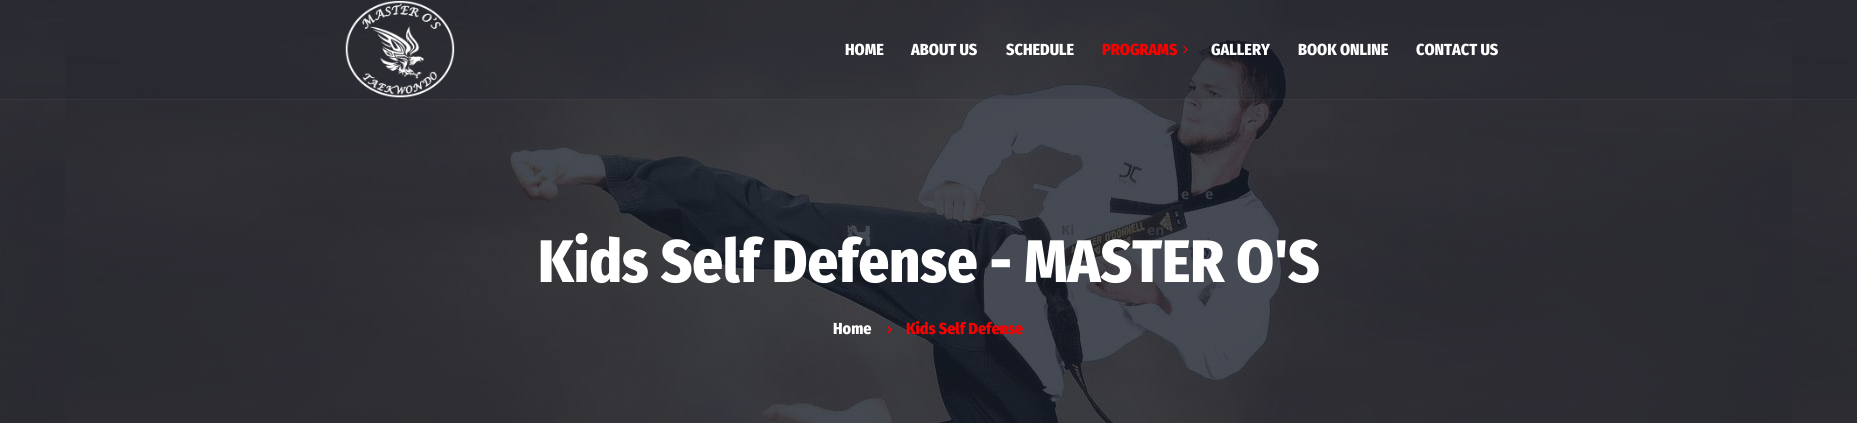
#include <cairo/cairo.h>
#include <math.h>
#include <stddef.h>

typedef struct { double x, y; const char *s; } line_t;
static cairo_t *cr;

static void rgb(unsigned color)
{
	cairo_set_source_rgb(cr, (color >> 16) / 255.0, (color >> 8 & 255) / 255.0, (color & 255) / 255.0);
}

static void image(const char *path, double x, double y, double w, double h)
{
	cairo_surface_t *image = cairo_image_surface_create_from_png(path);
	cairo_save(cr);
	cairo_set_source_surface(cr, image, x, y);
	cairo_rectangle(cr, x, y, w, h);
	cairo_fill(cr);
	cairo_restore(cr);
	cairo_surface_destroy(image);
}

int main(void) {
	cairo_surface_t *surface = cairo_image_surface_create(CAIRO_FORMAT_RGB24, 1857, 423);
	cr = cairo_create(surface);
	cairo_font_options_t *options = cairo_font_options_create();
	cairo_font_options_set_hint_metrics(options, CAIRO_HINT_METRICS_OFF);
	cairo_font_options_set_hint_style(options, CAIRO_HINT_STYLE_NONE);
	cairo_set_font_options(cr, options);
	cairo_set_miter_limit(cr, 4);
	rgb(0xffffff);
	cairo_paint(cr);
	image("img/3.png", 0, 0, 1857, 423);
	cairo_set_source_rgba(cr, 0.09, 0.114, 0.161, 0.15);
	cairo_rectangle(cr, 0, 0, 1857, 100);
	cairo_fill(cr);
	image("img/1.png", 345, 0, 110, 98);
	image("img/2.png", 1183, 45, 5, 9);
	cairo_set_source_rgba(cr, 1, 1, 1, 0.05);
	cairo_rectangle(cr, 0, 99, 1857, 1);
	cairo_fill(cr);
	image("img/4.png", 887, 326, 5, 8);
	cairo_select_font_face(cr, "Fira Sans Condensed ExtraBold", CAIRO_FONT_SLANT_NORMAL, CAIRO_FONT_WEIGHT_NORMAL);
	cairo_set_font_size(cr, 16);
	rgb(0xffffff);
	{
		static const line_t items[] = {
			{845, 55, "HOME"},
			{911, 55, "ABOUT US"},
			{1006, 55, "SCHEDULE"},
		};
		for (size_t i = 0; i < sizeof items / sizeof *items; i++) {
			cairo_move_to(cr, items[i].x, items[i].y);
			cairo_show_text(cr, items[i].s);
		}
	}
	rgb(0xf80101);
	cairo_move_to(cr, 1102, 55);
	cairo_show_text(cr, "PROGRAMS");
	cairo_select_font_face(cr, "Open Sans", CAIRO_FONT_SLANT_NORMAL, CAIRO_FONT_WEIGHT_BOLD);
	cairo_set_font_size(cr, 14);
	rgb(0x3a3f48);
	cairo_move_to(cr, 1181, 199);
	cairo_show_text(cr, "e");
	cairo_move_to(cr, 1205, 199);
	cairo_show_text(cr, "e");
	rgb(0x373a40);
	cairo_move_to(cr, 1061, 235);
	cairo_show_text(cr, "Ki");
	cairo_select_font_face(cr, "Fira Sans Condensed ExtraBold", CAIRO_FONT_SLANT_NORMAL, CAIRO_FONT_WEIGHT_NORMAL);
	cairo_set_font_size(cr, 16);
	rgb(0xffffff);
	{
		static const line_t items[] = {
			{1211, 55, "GALLERY"},
			{1298, 55, "BOOK ONLINE"},
			{1416, 55, "CONTACT US"},
		};
		for (size_t i = 0; i < sizeof items / sizeof *items; i++) {
			cairo_move_to(cr, items[i].x, items[i].y);
			cairo_show_text(cr, items[i].s);
		}
	}
	cairo_set_font_size(cr, 60);
	cairo_move_to(cr, 538, 282);
	cairo_show_text(cr, "Kids Self Defense - MASTER O'S");
	cairo_select_font_face(cr, "Open Sans", CAIRO_FONT_SLANT_NORMAL, CAIRO_FONT_WEIGHT_BOLD);
	cairo_set_font_size(cr, 14);
	rgb(0x373a40);
	cairo_move_to(cr, 1147, 235);
	cairo_show_text(cr, "en");
	cairo_select_font_face(cr, "Fira Sans Condensed ExtraBold", CAIRO_FONT_SLANT_NORMAL, CAIRO_FONT_WEIGHT_NORMAL);
	cairo_set_font_size(cr, 16);
	rgb(0xffffff);
	cairo_move_to(cr, 833, 334);
	cairo_show_text(cr, "Home");
	rgb(0xf80101);
	cairo_move_to(cr, 906, 334);
	cairo_show_text(cr, "Kids Self Defense");
	cairo_surface_write_to_png(surface, "page.png");
	cairo_font_options_destroy(options);
	cairo_destroy(cr);
	cairo_surface_destroy(surface);
	return 0;
}
